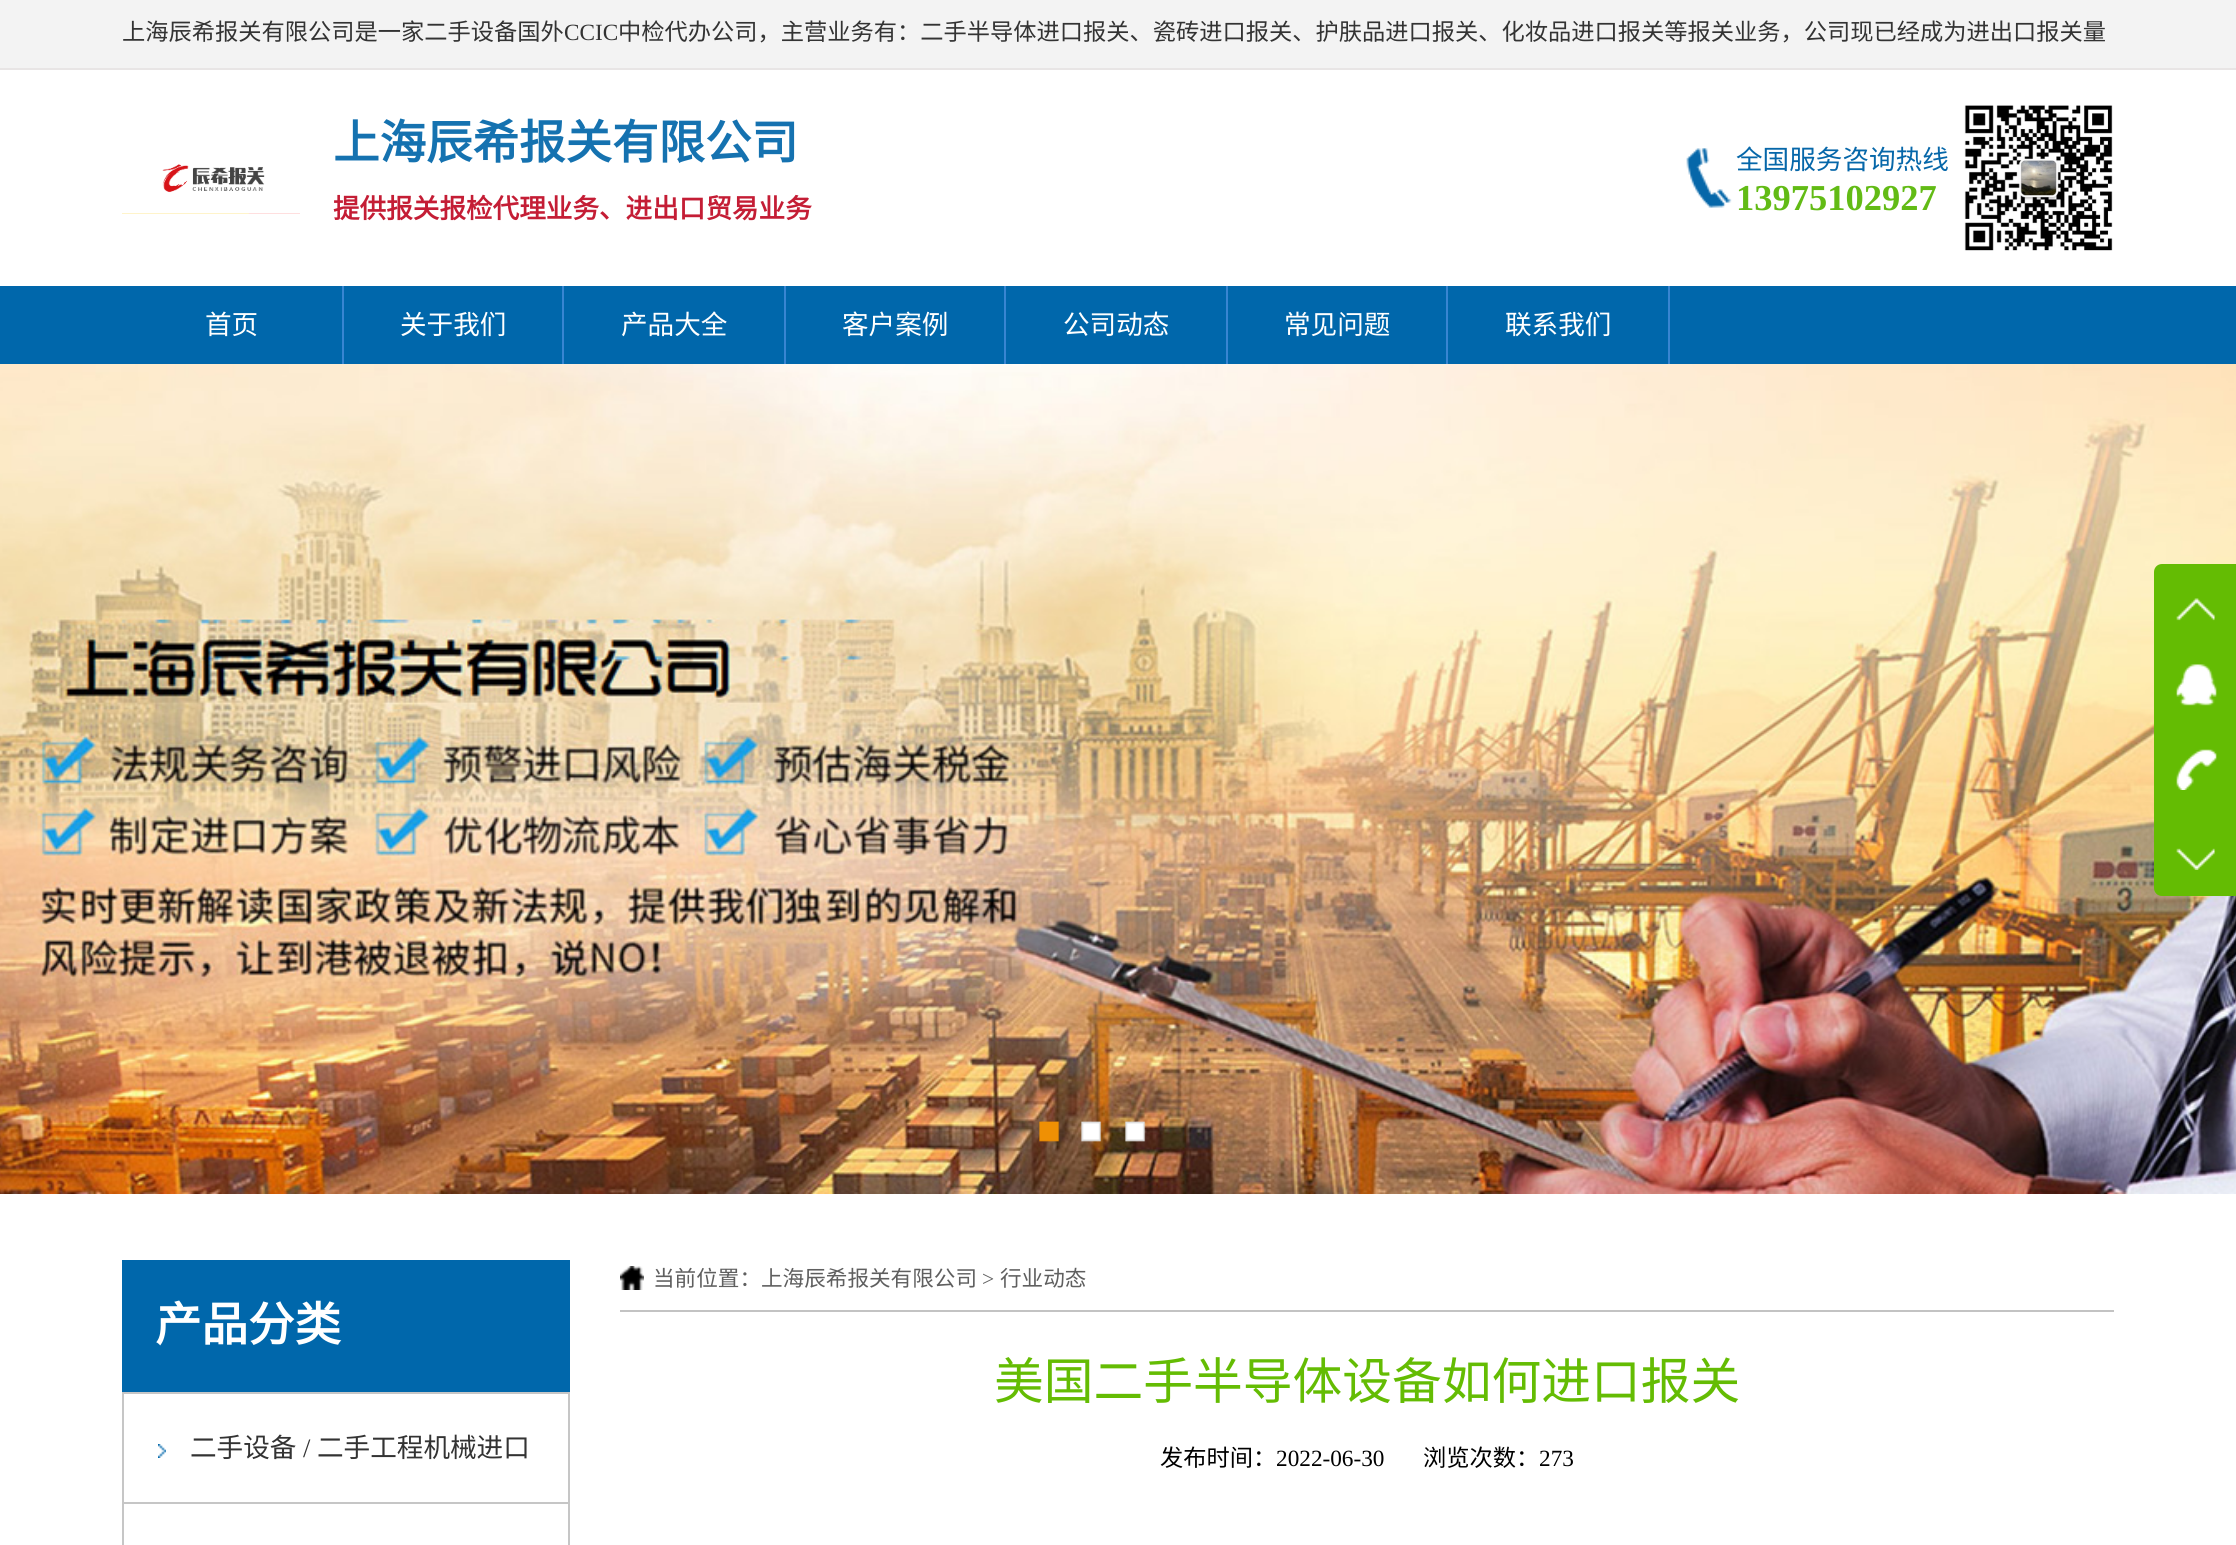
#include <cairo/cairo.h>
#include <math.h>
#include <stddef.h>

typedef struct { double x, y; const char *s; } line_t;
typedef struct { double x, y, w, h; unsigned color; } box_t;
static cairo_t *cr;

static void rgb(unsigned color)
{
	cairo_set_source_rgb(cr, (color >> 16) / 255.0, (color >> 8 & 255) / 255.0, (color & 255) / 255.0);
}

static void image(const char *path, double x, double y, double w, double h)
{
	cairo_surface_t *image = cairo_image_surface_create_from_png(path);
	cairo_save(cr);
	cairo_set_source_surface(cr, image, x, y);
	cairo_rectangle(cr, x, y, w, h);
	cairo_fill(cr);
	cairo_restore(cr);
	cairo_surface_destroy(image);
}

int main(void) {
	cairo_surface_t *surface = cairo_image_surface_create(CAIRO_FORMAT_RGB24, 2236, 1545);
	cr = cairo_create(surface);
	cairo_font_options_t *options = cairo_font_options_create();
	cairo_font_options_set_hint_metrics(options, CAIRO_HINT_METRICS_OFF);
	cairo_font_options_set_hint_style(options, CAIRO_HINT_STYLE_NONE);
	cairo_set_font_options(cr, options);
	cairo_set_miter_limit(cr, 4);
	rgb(0xffffff);
	cairo_paint(cr);
	rgb(0xf3f3f3);
	cairo_rectangle(cr, 0, 0, 2236, 68);
	cairo_fill(cr);
	rgb(0xe8e5e5);
	cairo_rectangle(cr, 0, 68, 2236, 2);
	cairo_fill(cr);
	image("img/1.png", 122, 164, 178, 50);
	image("img/2.png", 1686, 148, 46, 60);
	image("img/3.png", 1964, 105, 149, 146);
	{
		static const box_t items[] = {
			{0, 286, 2236, 78, 0x0067ab},
			{342, 286, 2, 78, 0x3885d1},
			{562, 286, 2, 78, 0x3885d1},
			{784, 286, 2, 78, 0x3885d1},
			{1004, 286, 2, 78, 0x3885d1},
			{1226, 286, 2, 78, 0x3885d1},
			{1446, 286, 2, 78, 0x3885d1},
			{1668, 286, 2, 78, 0x3885d1},
		};
		for (size_t i = 0; i < sizeof items / sizeof *items; i++) {
			rgb(items[i].color);
			cairo_rectangle(cr, items[i].x, items[i].y, items[i].w, items[i].h);
			cairo_fill(cr);
		}
	}
	image("img/4.png", 0, 364, 2236, 830);
	image("img/5.png", 1039, 1121, 21, 22);
	image("img/6.png", 1081, 1121, 21, 21);
	image("img/7.png", 1125, 1121, 21, 21);
	rgb(0x64bc03);
	cairo_new_path(cr);
	cairo_move_to(cr, 2162, 564);
	cairo_line_to(cr, 2236, 564);
	cairo_line_to(cr, 2236, 896);
	cairo_line_to(cr, 2162, 896);
	cairo_curve_to(cr, 2157.5, 896, 2154, 892.5, 2154, 888);
	cairo_line_to(cr, 2154, 572);
	cairo_curve_to(cr, 2154, 567.5, 2157.5, 564, 2162, 564);
	cairo_close_path(cr);
	cairo_fill(cr);
	image("img/8.png", 2176, 598, 39, 23);
	image("img/9.png", 2176, 664, 41, 42);
	image("img/10.png", 2176, 749, 41, 41);
	image("img/11.png", 2176, 848, 39, 22);
	{
		static const box_t items[] = {
			{122, 1260, 448, 132, 0x0067ab},
			{568, 1392, 2, 153, 0xc6c6c6},
			{122, 1392, 2, 153, 0xc6c6c6},
		};
		for (size_t i = 0; i < sizeof items / sizeof *items; i++) {
			rgb(items[i].color);
			cairo_rectangle(cr, items[i].x, items[i].y, items[i].w, items[i].h);
			cairo_fill(cr);
		}
	}
	image("img/12.png", 158, 1444, 8, 14);
	{
		static const box_t items[] = {
			{124, 1392, 444, 2, 0xc6c6c6},
			{124, 1502, 444, 2, 0xc6c6c6},
			{620, 1310, 1494, 2, 0xc3c3c3},
		};
		for (size_t i = 0; i < sizeof items / sizeof *items; i++) {
			rgb(items[i].color);
			cairo_rectangle(cr, items[i].x, items[i].y, items[i].w, items[i].h);
			cairo_fill(cr);
		}
	}
	image("img/13.png", 620, 1266, 24, 24);
	cairo_select_font_face(cr, "Noto Sans CJK SC", CAIRO_FONT_SLANT_NORMAL, CAIRO_FONT_WEIGHT_NORMAL);
	cairo_set_font_size(cr, 23.25);
	rgb(0x333333);
	cairo_move_to(cr, 122, 40);
	cairo_show_text(cr, "上海辰希报关有限公司是一家二手设备国外");
	cairo_select_font_face(cr, "Liberation Serif", CAIRO_FONT_SLANT_NORMAL, CAIRO_FONT_WEIGHT_NORMAL);
	cairo_move_to(cr, 564, 40);
	cairo_show_text(cr, "CCIC");
	cairo_select_font_face(cr, "Noto Sans CJK SC", CAIRO_FONT_SLANT_NORMAL, CAIRO_FONT_WEIGHT_NORMAL);
	cairo_move_to(cr, 618, 40);
	cairo_show_text(cr, "中检代办公司，主营业务有：二手半导体进口报关、瓷砖进口报关、护肤品进口报关、化妆品进口报关等报关业务，公司现已经成为进出口报关量");
	cairo_select_font_face(cr, "Noto Sans CJK SC", CAIRO_FONT_SLANT_NORMAL, CAIRO_FONT_WEIGHT_BOLD);
	cairo_set_font_size(cr, 46.5);
	rgb(0x1572b0);
	cairo_move_to(cr, 333, 159);
	cairo_show_text(cr, "上海辰希报关有限公司");
	cairo_set_font_size(cr, 26.6);
	rgb(0xc41d35);
	cairo_move_to(cr, 333, 218);
	cairo_show_text(cr, "提供报关报检代理业务、进出口贸易业务");
	cairo_select_font_face(cr, "Noto Sans CJK SC", CAIRO_FONT_SLANT_NORMAL, CAIRO_FONT_WEIGHT_NORMAL);
	rgb(0x0667a9);
	cairo_move_to(cr, 1736, 169);
	cairo_show_text(cr, "全国服务咨询热线");
	cairo_select_font_face(cr, "Liberation Serif", CAIRO_FONT_SLANT_NORMAL, CAIRO_FONT_WEIGHT_BOLD);
	cairo_set_font_size(cr, 36.5);
	rgb(0x62bb15);
	cairo_move_to(cr, 1736, 210);
	cairo_show_text(cr, "13975102927");
	cairo_select_font_face(cr, "Noto Sans CJK SC", CAIRO_FONT_SLANT_NORMAL, CAIRO_FONT_WEIGHT_NORMAL);
	cairo_set_font_size(cr, 26.6);
	rgb(0xffffff);
	{
		static const line_t items[] = {
			{205, 334, "首页"},
			{400, 334, "关于我们"},
			{621, 334, "产品大全"},
			{842, 334, "客户案例"},
			{1063, 334, "公司动态"},
			{1284, 334, "常见问题"},
			{1505, 334, "联系我们"},
		};
		for (size_t i = 0; i < sizeof items / sizeof *items; i++) {
			cairo_move_to(cr, items[i].x, items[i].y);
			cairo_show_text(cr, items[i].s);
		}
	}
	cairo_select_font_face(cr, "Noto Sans CJK SC", CAIRO_FONT_SLANT_NORMAL, CAIRO_FONT_WEIGHT_BOLD);
	cairo_set_font_size(cr, 46.5);
	cairo_move_to(cr, 155, 1341);
	cairo_show_text(cr, "产品分类");
	cairo_select_font_face(cr, "Noto Sans CJK SC", CAIRO_FONT_SLANT_NORMAL, CAIRO_FONT_WEIGHT_NORMAL);
	cairo_set_font_size(cr, 26.6);
	rgb(0x333333);
	cairo_move_to(cr, 190, 1457);
	cairo_show_text(cr, "二手设备");
	cairo_select_font_face(cr, "Liberation Serif", CAIRO_FONT_SLANT_NORMAL, CAIRO_FONT_WEIGHT_NORMAL);
	cairo_move_to(cr, 303, 1457);
	cairo_show_text(cr, "/");
	cairo_select_font_face(cr, "Noto Sans CJK SC", CAIRO_FONT_SLANT_NORMAL, CAIRO_FONT_WEIGHT_NORMAL);
	cairo_move_to(cr, 317, 1457);
	cairo_show_text(cr, "二手工程机械进口");
	cairo_set_font_size(cr, 21.6);
	rgb(0x5f5f5f);
	cairo_move_to(cr, 653, 1286);
	cairo_show_text(cr, "当前位置：上海辰希报关有限公司");
	cairo_select_font_face(cr, "Liberation Serif", CAIRO_FONT_SLANT_NORMAL, CAIRO_FONT_WEIGHT_NORMAL);
	cairo_move_to(cr, 982, 1286);
	cairo_show_text(cr, ">");
	cairo_select_font_face(cr, "Noto Sans CJK SC", CAIRO_FONT_SLANT_NORMAL, CAIRO_FONT_WEIGHT_NORMAL);
	cairo_move_to(cr, 1000, 1286);
	cairo_show_text(cr, "行业动态");
	cairo_set_font_size(cr, 49.75);
	rgb(0x64bc03);
	cairo_move_to(cr, 994, 1399);
	cairo_show_text(cr, "美国二手半导体设备如何进口报关");
	cairo_set_font_size(cr, 23.25);
	rgb(0x000000);
	cairo_move_to(cr, 1160, 1466);
	cairo_show_text(cr, "发布时间：");
	cairo_select_font_face(cr, "Liberation Serif", CAIRO_FONT_SLANT_NORMAL, CAIRO_FONT_WEIGHT_NORMAL);
	cairo_move_to(cr, 1276, 1466);
	cairo_show_text(cr, "2022-06-30");
	cairo_select_font_face(cr, "Noto Sans CJK SC", CAIRO_FONT_SLANT_NORMAL, CAIRO_FONT_WEIGHT_NORMAL);
	cairo_move_to(cr, 1423, 1466);
	cairo_show_text(cr, "浏览次数：");
	cairo_select_font_face(cr, "Liberation Serif", CAIRO_FONT_SLANT_NORMAL, CAIRO_FONT_WEIGHT_NORMAL);
	cairo_move_to(cr, 1539, 1466);
	cairo_show_text(cr, "273");
	cairo_surface_write_to_png(surface, "page.png");
	cairo_font_options_destroy(options);
	cairo_destroy(cr);
	cairo_surface_destroy(surface);
	return 0;
}
